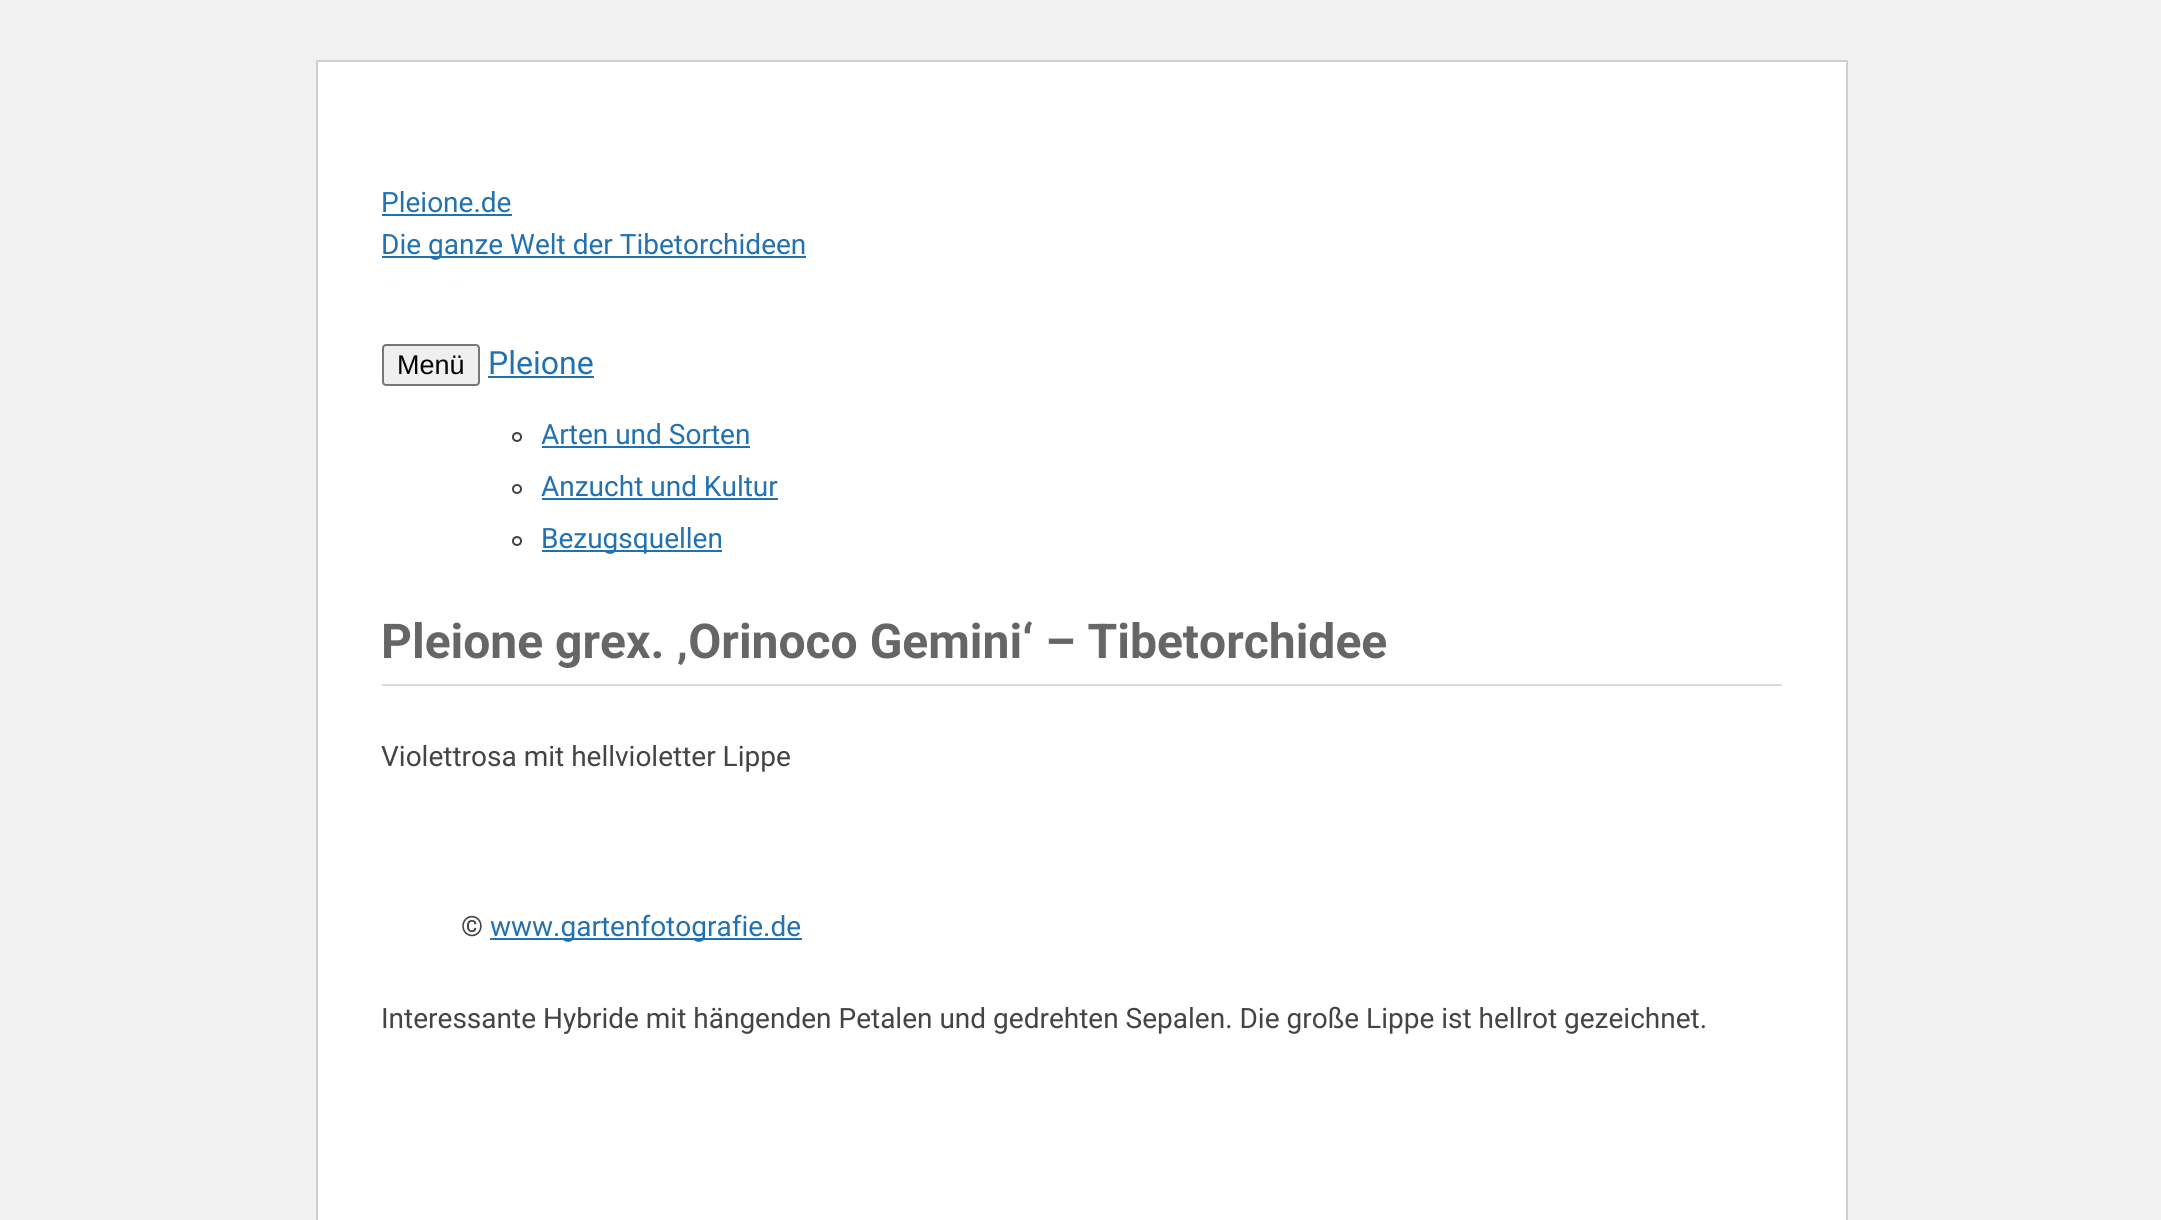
#include <cairo/cairo.h>
#include <math.h>
#include <stddef.h>

typedef struct { double x, y; const char *s; } line_t;
typedef struct { double x, y, w, h; unsigned color; } box_t;
static cairo_t *cr;

static void rgb(unsigned color)
{
	cairo_set_source_rgb(cr, (color >> 16) / 255.0, (color >> 8 & 255) / 255.0, (color & 255) / 255.0);
}

static void rrect(double x, double y, double w, double h, double r)
{
	cairo_new_sub_path(cr);
	cairo_arc(cr, x + w - r, y + h - r, r, 0, M_PI / 2);
	cairo_arc(cr, x + r, y + h - r, r, M_PI / 2, M_PI);
	cairo_arc(cr, x + r, y + r, r, M_PI, 1.5 * M_PI);
	cairo_arc(cr, x + w - r, y + r, r, 1.5 * M_PI, 2 * M_PI);
	cairo_close_path(cr);
}

int main(void) {
	cairo_surface_t *surface = cairo_image_surface_create(CAIRO_FORMAT_RGB24, 2161, 1220);
	cr = cairo_create(surface);
	cairo_font_options_t *options = cairo_font_options_create();
	cairo_font_options_set_hint_metrics(options, CAIRO_HINT_METRICS_OFF);
	cairo_font_options_set_hint_style(options, CAIRO_HINT_STYLE_NONE);
	cairo_set_font_options(cr, options);
	cairo_set_miter_limit(cr, 4);
	rgb(0xf1f1f1);
	cairo_paint(cr);
	rgb(0xffffff);
	cairo_rectangle(cr, 317, 61, 1530, 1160);
	cairo_fill_preserve(cr);
	rgb(0xccd0d4);
	cairo_stroke(cr);
	rgb(0x2271b1);
	cairo_rectangle(cr, 382, 214, 130, 2);
	cairo_fill(cr);
	cairo_rectangle(cr, 382, 256, 424, 2);
	cairo_fill(cr);
	rgb(0xefefef);
	rrect(383, 345, 96, 40, 3);
	cairo_fill_preserve(cr);
	rgb(0x767676);
	cairo_stroke(cr);
	rgb(0x2271b1);
	cairo_rectangle(cr, 488, 376, 106, 2);
	cairo_fill(cr);
	cairo_arc(cr, 517, 437, 4, 0, 2 * M_PI);
	rgb(0x444444);
	cairo_stroke(cr);
	rgb(0x2271b1);
	cairo_rectangle(cr, 542, 446, 208, 2);
	cairo_fill(cr);
	cairo_arc(cr, 517, 489, 4, 0, 2 * M_PI);
	rgb(0x444444);
	cairo_stroke(cr);
	rgb(0x2271b1);
	cairo_rectangle(cr, 542, 498, 236, 2);
	cairo_fill(cr);
	cairo_arc(cr, 517, 541, 4, 0, 2 * M_PI);
	rgb(0x444444);
	cairo_stroke(cr);
	{
		static const box_t items[] = {
			{542, 550, 180, 2, 0x2271b1},
			{382, 684, 1400, 2, 0xdadada},
			{490, 938, 312, 2, 0x2271b1},
		};
		for (size_t i = 0; i < sizeof items / sizeof *items; i++) {
			rgb(items[i].color);
			cairo_rectangle(cr, items[i].x, items[i].y, items[i].w, items[i].h);
			cairo_fill(cr);
		}
	}
	cairo_select_font_face(cr, "Roboto", CAIRO_FONT_SLANT_NORMAL, CAIRO_FONT_WEIGHT_NORMAL);
	cairo_set_font_size(cr, 28);
	cairo_move_to(cr, 381, 212);
	cairo_show_text(cr, "Pleione.de");
	cairo_move_to(cr, 381, 254);
	cairo_show_text(cr, "Die ganze Welt der Tibetorchideen");
	cairo_select_font_face(cr, "Liberation Sans", CAIRO_FONT_SLANT_NORMAL, CAIRO_FONT_WEIGHT_NORMAL);
	cairo_set_font_size(cr, 27);
	rgb(0x000000);
	cairo_move_to(cr, 397, 374);
	cairo_show_text(cr, "Menü");
	cairo_select_font_face(cr, "Roboto", CAIRO_FONT_SLANT_NORMAL, CAIRO_FONT_WEIGHT_NORMAL);
	cairo_set_font_size(cr, 32);
	rgb(0x2271b1);
	cairo_move_to(cr, 488, 374);
	cairo_show_text(cr, "Pleione");
	cairo_set_font_size(cr, 28);
	{
		static const line_t items[] = {
			{541, 444, "Arten und Sorten"},
			{541, 496, "Anzucht und Kultur"},
			{541, 548, "Bezugsquellen"},
		};
		for (size_t i = 0; i < sizeof items / sizeof *items; i++) {
			cairo_move_to(cr, items[i].x, items[i].y);
			cairo_show_text(cr, items[i].s);
		}
	}
	cairo_select_font_face(cr, "Roboto", CAIRO_FONT_SLANT_NORMAL, CAIRO_FONT_WEIGHT_BOLD);
	cairo_set_font_size(cr, 48);
	rgb(0x666666);
	cairo_move_to(cr, 381, 658);
	cairo_show_text(cr, "Pleione grex. ‚Orinoco Gemini‘ – Tibetorchidee");
	cairo_select_font_face(cr, "Roboto", CAIRO_FONT_SLANT_NORMAL, CAIRO_FONT_WEIGHT_NORMAL);
	cairo_set_font_size(cr, 28);
	rgb(0x444444);
	cairo_move_to(cr, 381, 766);
	cairo_show_text(cr, "Violettrosa mit hellvioletter Lippe");
	cairo_move_to(cr, 461, 936);
	cairo_show_text(cr, "©");
	rgb(0x2271b1);
	cairo_move_to(cr, 490, 936);
	cairo_show_text(cr, "www.gartenfotografie.de");
	rgb(0x444444);
	cairo_move_to(cr, 381, 1028);
	cairo_show_text(cr, "Interessante Hybride mit hängenden Petalen und gedrehten Sepalen. Die große Lippe ist hellrot gezeichnet.");
	cairo_surface_write_to_png(surface, "page.png");
	cairo_font_options_destroy(options);
	cairo_destroy(cr);
	cairo_surface_destroy(surface);
	return 0;
}
